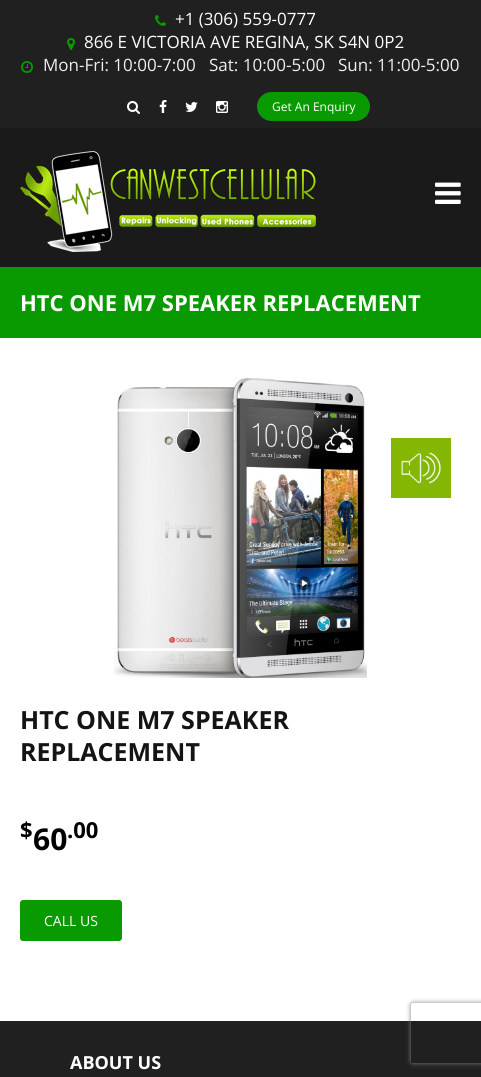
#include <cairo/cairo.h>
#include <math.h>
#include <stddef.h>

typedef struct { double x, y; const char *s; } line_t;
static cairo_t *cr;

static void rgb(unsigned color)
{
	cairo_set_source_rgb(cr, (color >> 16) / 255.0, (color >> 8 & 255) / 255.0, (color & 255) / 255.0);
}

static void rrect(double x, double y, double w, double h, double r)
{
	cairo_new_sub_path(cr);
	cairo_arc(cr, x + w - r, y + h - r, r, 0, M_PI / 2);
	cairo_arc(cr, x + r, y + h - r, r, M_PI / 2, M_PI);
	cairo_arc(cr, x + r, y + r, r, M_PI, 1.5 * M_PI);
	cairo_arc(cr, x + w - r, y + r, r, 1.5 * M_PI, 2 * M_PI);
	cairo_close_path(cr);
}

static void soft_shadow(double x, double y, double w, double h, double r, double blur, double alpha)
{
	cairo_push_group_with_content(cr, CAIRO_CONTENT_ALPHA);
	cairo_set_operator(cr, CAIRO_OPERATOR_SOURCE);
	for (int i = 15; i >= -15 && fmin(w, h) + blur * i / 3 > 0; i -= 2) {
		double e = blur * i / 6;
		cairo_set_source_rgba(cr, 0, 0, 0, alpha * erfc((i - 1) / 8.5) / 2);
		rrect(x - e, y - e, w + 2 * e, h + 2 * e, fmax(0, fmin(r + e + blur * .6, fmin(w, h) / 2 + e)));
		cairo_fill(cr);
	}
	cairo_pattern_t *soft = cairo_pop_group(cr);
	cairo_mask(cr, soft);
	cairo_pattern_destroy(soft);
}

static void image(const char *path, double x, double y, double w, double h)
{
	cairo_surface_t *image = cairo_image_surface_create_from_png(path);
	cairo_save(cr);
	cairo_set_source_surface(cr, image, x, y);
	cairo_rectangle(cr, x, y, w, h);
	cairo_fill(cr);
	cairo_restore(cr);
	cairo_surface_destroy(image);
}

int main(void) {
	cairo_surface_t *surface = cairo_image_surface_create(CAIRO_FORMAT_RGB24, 481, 1077);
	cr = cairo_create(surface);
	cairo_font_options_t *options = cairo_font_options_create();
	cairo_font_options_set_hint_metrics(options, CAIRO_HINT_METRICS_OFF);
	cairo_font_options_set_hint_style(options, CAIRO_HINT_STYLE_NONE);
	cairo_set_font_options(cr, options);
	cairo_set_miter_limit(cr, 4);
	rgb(0xffffff);
	cairo_paint(cr);
	rgb(0x202020);
	cairo_rectangle(cr, 0, 0, 481, 128);
	cairo_fill(cr);
	image("img/1.png", 155, 15, 11, 11);
	image("img/2.png", 67, 38, 8, 12);
	image("img/3.png", 21, 61, 12, 12);
	image("img/4.png", 127, 101, 13, 13);
	image("img/5.png", 159, 100, 8, 13);
	image("img/6.png", 185, 102, 13, 10);
	image("img/7.png", 216, 101, 12, 12);
	rgb(0x099a01);
	rrect(257, 92, 113, 29, 14.5);
	cairo_fill(cr);
	rgb(0x1a1a1a);
	cairo_rectangle(cr, 0, 128, 481, 139);
	cairo_fill(cr);
	image("img/8.png", 20, 151, 296, 101);
	image("img/9.png", 435, 182, 26, 22);
	rgb(0x099a01);
	cairo_rectangle(cr, 0, 267, 481, 71);
	cairo_fill(cr);
	image("img/10.png", 114, 378, 253, 300);
	rgb(0x84b604);
	cairo_rectangle(cr, 391, 438, 60, 60);
	cairo_fill(cr);
	image("img/11.png", 401, 452, 40, 32);
	rgb(0x099a01);
	rrect(20, 900, 102, 41, 3);
	cairo_fill(cr);
	rgb(0x202020);
	cairo_rectangle(cr, 0, 1021, 481, 56);
	cairo_fill(cr);
	cairo_save(cr);
	cairo_set_fill_rule(cr, CAIRO_FILL_RULE_EVEN_ODD);
	cairo_new_path(cr);
	cairo_move_to(cr, 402, 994);
	cairo_line_to(cr, 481, 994);
	cairo_line_to(cr, 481, 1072);
	cairo_line_to(cr, 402, 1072);
	cairo_close_path(cr);
	cairo_move_to(cr, 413, 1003);
	cairo_line_to(cr, 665, 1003);
	cairo_curve_to(cr, 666, 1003, 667, 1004, 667, 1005);
	cairo_line_to(cr, 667, 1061);
	cairo_curve_to(cr, 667, 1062, 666, 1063, 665, 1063);
	cairo_line_to(cr, 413, 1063);
	cairo_curve_to(cr, 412, 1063, 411, 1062, 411, 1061);
	cairo_line_to(cr, 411, 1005);
	cairo_curve_to(cr, 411, 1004, 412, 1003, 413, 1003);
	cairo_close_path(cr);
	cairo_clip(cr);
	rgb(0x808080);
	soft_shadow(411, 1003, 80, 60, 2, 2.5, 1);
	cairo_restore(cr);
	cairo_select_font_face(cr, "Open Sans", CAIRO_FONT_SLANT_NORMAL, CAIRO_FONT_WEIGHT_NORMAL);
	cairo_set_font_size(cr, 17);
	rgb(0xffffff);
	cairo_move_to(cr, 175, 25);
	cairo_show_text(cr, "+1 (306) 559-0777");
	cairo_move_to(cr, 84, 48);
	cairo_show_text(cr, "866 E VICTORIA AVE REGINA, SK S4N 0P2");
	rgb(0xeeeeee);
	{
		static const line_t items[] = {
			{43, 71, "Mon-Fri: 10:00-7:00"},
			{209, 71, "Sat: 10:00-5:00"},
			{338, 71, "Sun: 11:00-5:00"},
		};
		for (size_t i = 0; i < sizeof items / sizeof *items; i++) {
			cairo_move_to(cr, items[i].x, items[i].y);
			cairo_show_text(cr, items[i].s);
		}
	}
	cairo_set_font_size(cr, 12);
	rgb(0xffffff);
	cairo_move_to(cr, 272, 111);
	cairo_show_text(cr, "Get An Enquiry");
	cairo_select_font_face(cr, "Open Sans", CAIRO_FONT_SLANT_NORMAL, CAIRO_FONT_WEIGHT_BOLD);
	cairo_set_font_size(cr, 22);
	cairo_move_to(cr, 20, 311);
	cairo_show_text(cr, "HTC ONE M7 SPEAKER REPLACEMENT");
	cairo_set_font_size(cr, 25);
	rgb(0x141412);
	cairo_move_to(cr, 20, 729);
	cairo_show_text(cr, "HTC ONE M7 SPEAKER");
	cairo_move_to(cr, 20, 761);
	cairo_show_text(cr, "REPLACEMENT");
	cairo_set_font_size(cr, 22);
	rgb(0x000000);
	cairo_move_to(cr, 20, 838);
	cairo_show_text(cr, "$");
	cairo_set_font_size(cr, 30);
	cairo_move_to(cr, 33, 850);
	cairo_show_text(cr, "60");
	cairo_set_font_size(cr, 22);
	cairo_move_to(cr, 67, 838);
	cairo_show_text(cr, ".00");
	cairo_select_font_face(cr, "Open Sans", CAIRO_FONT_SLANT_NORMAL, CAIRO_FONT_WEIGHT_NORMAL);
	cairo_set_font_size(cr, 14);
	rgb(0xffffff);
	cairo_move_to(cr, 44, 926);
	cairo_show_text(cr, "CALL US");
	cairo_select_font_face(cr, "Open Sans", CAIRO_FONT_SLANT_NORMAL, CAIRO_FONT_WEIGHT_BOLD);
	cairo_set_font_size(cr, 18);
	cairo_move_to(cr, 70, 1069);
	cairo_show_text(cr, "ABOUT US");
	cairo_surface_write_to_png(surface, "page.png");
	cairo_font_options_destroy(options);
	cairo_destroy(cr);
	cairo_surface_destroy(surface);
	return 0;
}
